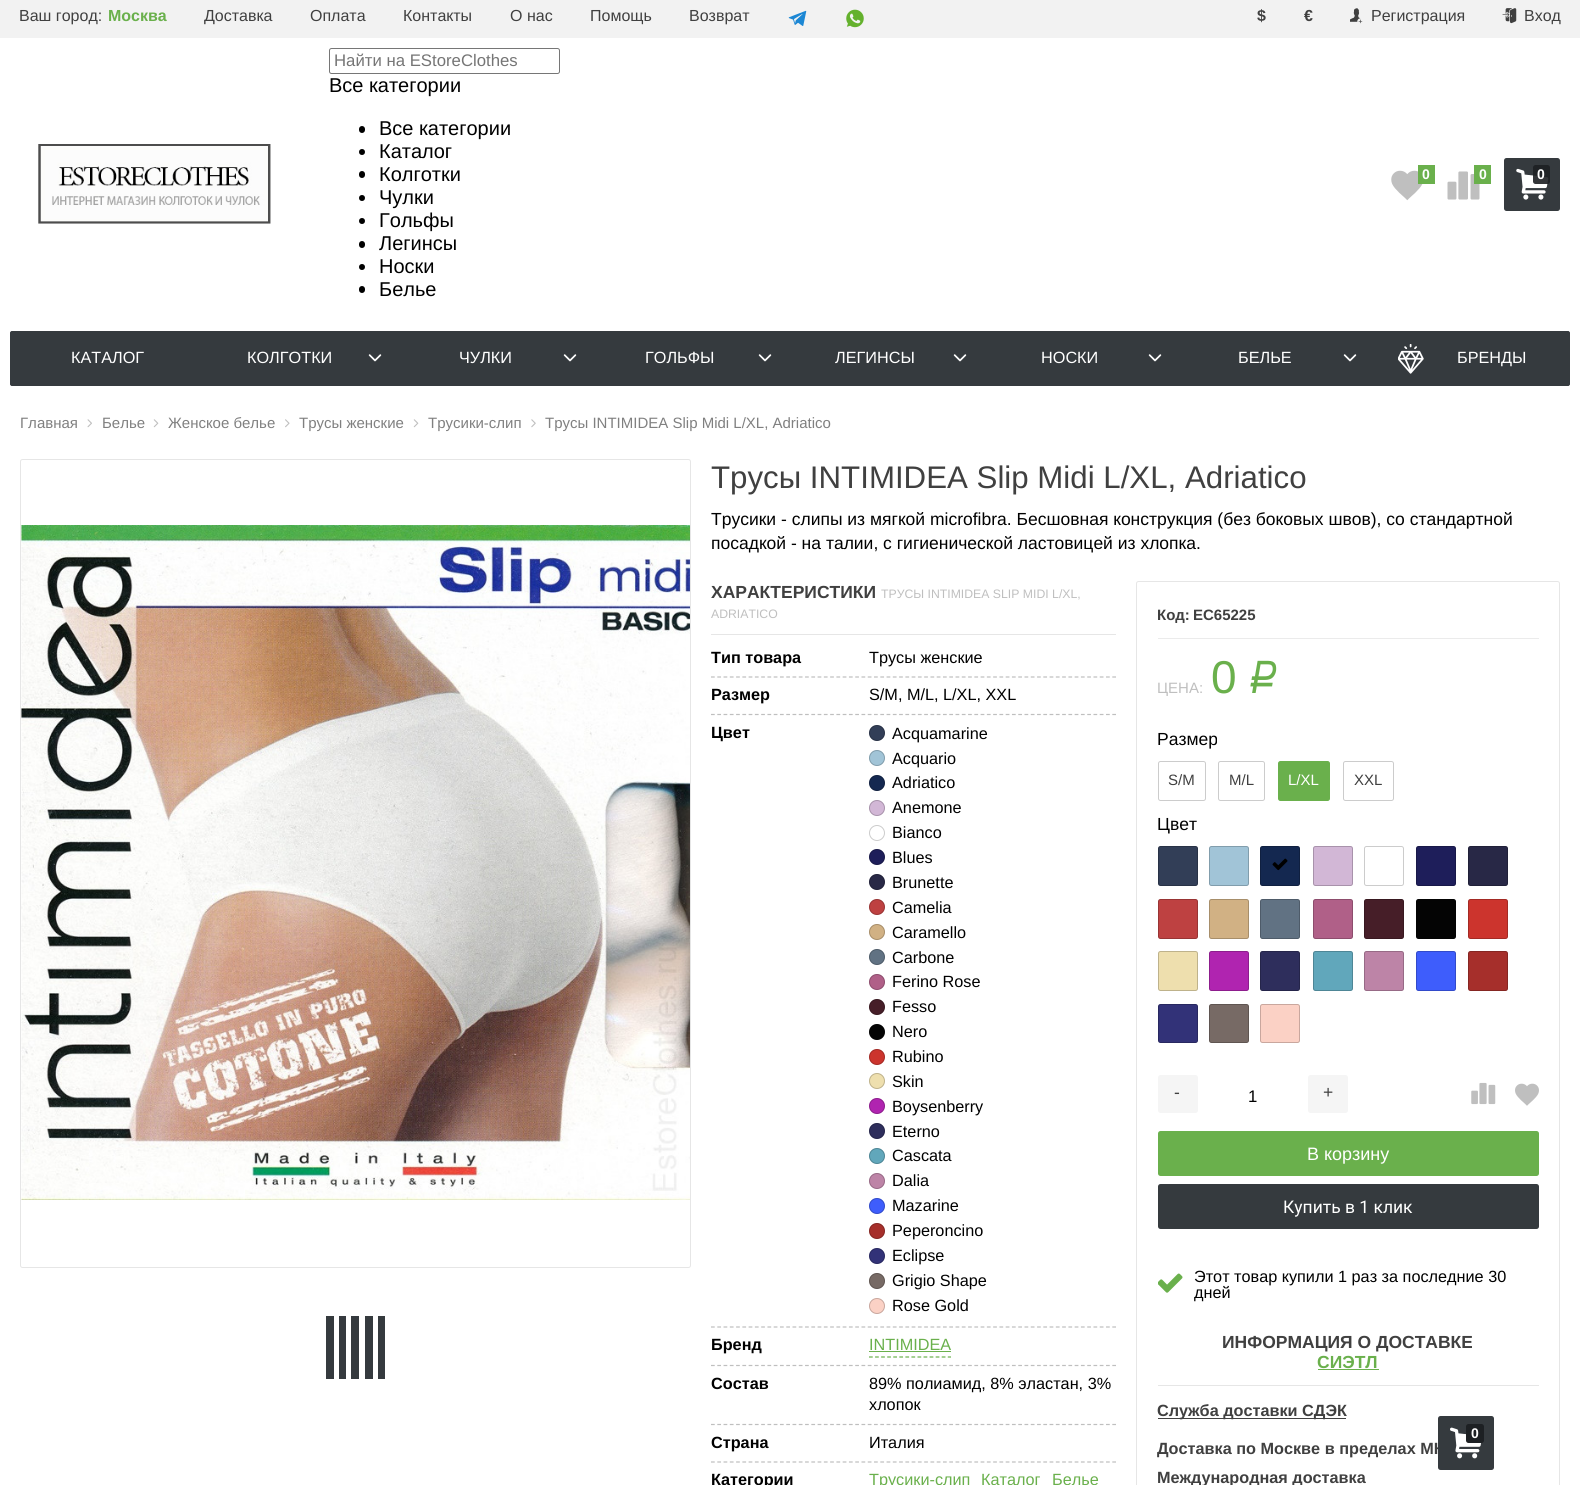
import math
import cairocffi as cairo

surface = cairo.ImageSurface(cairo.FORMAT_RGB24, 1580, 1485)
cr = cairo.Context(surface)
options = cairo.FontOptions()
options.set_hint_metrics(cairo.HINT_METRICS_OFF)
options.set_hint_style(cairo.HINT_STYLE_NONE)
cr.set_font_options(options)
cr.set_miter_limit(4)


def use_color(code):
    cr.set_source_rgb(*(v / 255 for v in bytes.fromhex(code[-6:])))


def round_rect(x, y, w, h, r):
    cr.new_sub_path()
    for i, (u, v) in enumerate([(x + w - r, y + h - r), (x + r, y + h - r), (x + r, y + r), (x + w - r, y + r)]):
        cr.arc(u, v, r, i * math.pi / 2, (i + 1) * math.pi / 2)
    cr.close_path()


def picture(path, x, y, w, h):
    cr.save()
    cr.set_source_surface(cairo.ImageSurface.create_from_png(path), x, y)
    cr.rectangle(x, y, w, h)
    cr.fill()
    cr.restore()


use_color("#ffffff")
cr.paint()
use_color("#f2f2f2")
cr.rectangle(0, 0, 1580, 38)
cr.fill()
cr.select_font_face("Liberation Sans")
cr.set_font_size(16)
use_color("#404040")
cr.move_to(19, 21)
cr.show_text("Ваш город:")
cr.select_font_face("Liberation Sans", cairo.FONT_SLANT_NORMAL, cairo.FONT_WEIGHT_BOLD)
use_color("#6ab04c")
cr.move_to(108, 21)
cr.show_text("Москва")
cr.select_font_face("Liberation Sans")
use_color("#404040")
cr.move_to(204, 21)
cr.show_text("Доставка")
cr.move_to(310, 21)
cr.show_text("Оплата")
cr.move_to(403, 21)
cr.show_text("Контакты")
cr.move_to(510, 21)
cr.show_text("О нас")
cr.move_to(590, 21)
cr.show_text("Помощь")
cr.move_to(689, 21)
cr.show_text("Возврат")
picture("img1.png", 788, 10, 19, 16)
picture("img2.png", 846, 9, 18, 19)
cr.select_font_face("Liberation Sans", cairo.FONT_SLANT_NORMAL, cairo.FONT_WEIGHT_BOLD)
cr.move_to(1257, 21)
cr.show_text("$")
cr.move_to(1304, 21)
cr.show_text("€")
picture("img3.png", 1350, 8, 13, 16)
cr.select_font_face("Liberation Sans")
cr.move_to(1371, 21)
cr.show_text("Регистрация")
picture("img4.png", 1502, 8, 15, 16)
cr.move_to(1524, 21)
cr.show_text("Вход")
picture("img5.png", 38, 144, 233, 80)
round_rect(329.5, 48.5, 230, 25, 2)
use_color("#767676")
cr.set_line_width(1)
cr.stroke()
cr.set_font_size(16.75)
use_color("#757575")
cr.move_to(334, 66)
cr.show_text("Найти на EStoreClothes")
cr.set_font_size(20)
use_color("#000000")
cr.move_to(329, 92)
cr.show_text("Все категории")
round_rect(359, 126, 6, 7, 3)
cr.fill()
cr.move_to(379, 135)
cr.show_text("Все категории")
cr.new_path()
cr.arc(362, 152, 3, 0, 2 * math.pi)
cr.fill()
cr.move_to(379, 158)
cr.show_text("Каталог")
round_rect(359, 171, 6, 7, 3)
cr.fill()
cr.move_to(379, 181)
cr.show_text("Колготки")
cr.new_path()
cr.arc(362, 198, 3, 0, 2 * math.pi)
cr.fill()
cr.move_to(379, 204)
cr.show_text("Чулки")
cr.new_path()
cr.arc(362, 221, 3, 0, 2 * math.pi)
cr.fill()
cr.move_to(379, 227)
cr.show_text("Гольфы")
round_rect(359, 241, 6, 7, 3)
cr.fill()
cr.move_to(379, 250)
cr.show_text("Легинсы")
cr.new_path()
cr.arc(362, 267, 3, 0, 2 * math.pi)
cr.fill()
cr.move_to(379, 273)
cr.show_text("Носки")
round_rect(359, 286, 6, 7, 3)
cr.fill()
cr.move_to(379, 296)
cr.show_text("Белье")
picture("img6.png", 1391, 170, 32, 31)
use_color("#6ab04c")
cr.rectangle(1418, 165, 17, 19)
cr.fill()
cr.select_font_face("Liberation Sans", cairo.FONT_SLANT_NORMAL, cairo.FONT_WEIGHT_BOLD)
cr.set_font_size(14)
use_color("#ffffff")
cr.move_to(1422, 179)
cr.show_text("0")
picture("img7.png", 1447, 171, 33, 29)
use_color("#6ab04c")
cr.rectangle(1474, 165, 17, 19)
cr.fill()
use_color("#ffffff")
cr.move_to(1479, 179)
cr.show_text("0")
use_color("#353a3e")
round_rect(1504, 158, 56, 53, 2.5)
cr.fill()
picture("img8.png", 1516, 168, 33, 32)
cr.set_source_rgba(0.114, 0.125, 0.137, 0.9)
round_rect(1533, 165, 17, 19, 2.5)
cr.fill()
use_color("#ffffff")
cr.move_to(1537, 179)
cr.show_text("0")
use_color("#353a3e")
round_rect(10, 331, 1560, 55, 2.5)
cr.fill()
cr.new_path()
cr.move_to(12.5, 331)
cr.line_to(205, 331)
cr.line_to(205, 386)
cr.line_to(12.5, 386)
cr.curve_to(11, 386, 10, 385, 10, 383.5)
cr.line_to(10, 333.5)
cr.curve_to(10, 332, 11, 331, 12.5, 331)
cr.close_path()
cr.fill()
cr.select_font_face("Liberation Sans")
cr.set_font_size(16.25)
use_color("#ffffff")
cr.move_to(71, 363)
cr.show_text("КАТАЛОГ")
cr.move_to(247, 363)
cr.show_text("КОЛГОТКИ")
picture("img9.png", 368, 354, 14, 8)
cr.move_to(459, 363)
cr.show_text("ЧУЛКИ")
picture("img9.png", 563, 354, 14, 8)
cr.move_to(645, 363)
cr.show_text("ГОЛЬФЫ")
picture("img9.png", 758, 354, 14, 8)
cr.move_to(835, 363)
cr.show_text("ЛЕГИНСЫ")
picture("img9.png", 953, 354, 14, 8)
cr.move_to(1041, 363)
cr.show_text("НОСКИ")
picture("img9.png", 1148, 354, 14, 8)
cr.move_to(1238, 363)
cr.show_text("БЕЛЬЕ")
picture("img9.png", 1343, 354, 14, 8)
use_color("#353a3e")
cr.new_path()
cr.move_to(1375, 331)
cr.line_to(1567.5, 331)
cr.curve_to(1569, 331, 1570, 332, 1570, 333.5)
cr.line_to(1570, 383.5)
cr.curve_to(1570, 385, 1569, 386, 1567.5, 386)
cr.line_to(1375, 386)
cr.close_path()
cr.fill()
picture("img10.png", 1398, 344, 26, 30)
use_color("#ffffff")
cr.move_to(1457, 363)
cr.show_text("БРЕНДЫ")
cr.set_font_size(15)
use_color("#808080")
cr.move_to(20, 428)
cr.show_text("Главная")
picture("img11.png", 87, 419, 5, 9)
cr.move_to(102, 428)
cr.show_text("Белье")
picture("img12.png", 153, 419, 6, 9)
cr.move_to(168, 428)
cr.show_text("Женское белье")
picture("img13.png", 285, 419, 5, 9)
cr.move_to(299, 428)
cr.show_text("Трусы женские")
picture("img12.png", 413, 419, 6, 9)
cr.move_to(428, 428)
cr.show_text("Трусики-слип")
picture("img14.png", 531, 419, 5, 9)
cr.move_to(545, 428)
cr.show_text("Трусы INTIMIDEA Slip Midi L/XL, Adriatico")
round_rect(20.5, 459.5, 670, 808, 2)
use_color("#e6e6e6")
cr.stroke()
picture("img15.png", 21, 525, 669, 675)
use_color("#353a3e")
cr.rectangle(326, 1316, 8, 63)
cr.fill()
cr.rectangle(339, 1316, 7, 63)
cr.fill()
cr.rectangle(351, 1316, 8, 63)
cr.fill()
cr.rectangle(365, 1316, 8, 63)
cr.fill()
cr.rectangle(378, 1316, 7, 63)
cr.fill()
cr.set_font_size(31.25)
use_color("#404040")
cr.move_to(711, 488)
cr.show_text("Трусы INTIMIDEA Slip Midi L/XL, Adriatico")
cr.set_font_size(17.5)
use_color("#000000")
cr.move_to(711, 525)
cr.show_text("Трусики - слипы из мягкой microfibra. Бесшовная конструкция (без боковых швов), со стандартной")
cr.move_to(711, 549)
cr.show_text("посадкой - на талии, с гигиенической ластовицей из хлопка.")
use_color("#e6e6e6")
cr.rectangle(711, 634, 405, 1)
cr.fill()
cr.select_font_face("Liberation Sans", cairo.FONT_SLANT_NORMAL, cairo.FONT_WEIGHT_BOLD)
use_color("#404040")
cr.move_to(711, 598)
cr.show_text("ХАРАКТЕРИСТИКИ")
cr.select_font_face("Liberation Sans")
cr.set_font_size(12.25)
use_color("#bfbfbf")
cr.move_to(881, 598)
cr.show_text("ТРУСЫ INTIMIDEA SLIP MIDI L/XL,")
cr.move_to(711, 618)
cr.show_text("ADRIATICO")
cr.new_path()
cr.move_to(711, 677)
cr.line_to(1116, 677)
cr.set_line_width(1.2)
cr.set_dash([3.75, 2.52])
cr.stroke()
cr.select_font_face("Liberation Sans", cairo.FONT_SLANT_NORMAL, cairo.FONT_WEIGHT_BOLD)
cr.set_font_size(16.25)
use_color("#000000")
cr.move_to(711, 663)
cr.show_text("Тип товара")
cr.select_font_face("Liberation Sans")
cr.move_to(869, 663)
cr.show_text("Трусы женские")
cr.new_path()
cr.move_to(711, 714.5)
cr.line_to(1116, 714.5)
use_color("#bfbfbf")
cr.stroke()
cr.select_font_face("Liberation Sans", cairo.FONT_SLANT_NORMAL, cairo.FONT_WEIGHT_BOLD)
use_color("#000000")
cr.move_to(711, 700)
cr.show_text("Размер")
cr.select_font_face("Liberation Sans")
cr.move_to(869, 700)
cr.show_text("S/M, M/L, L/XL, XXL")
cr.new_path()
cr.move_to(711, 1327)
cr.line_to(1116, 1327)
use_color("#bfbfbf")
cr.stroke()
cr.select_font_face("Liberation Sans", cairo.FONT_SLANT_NORMAL, cairo.FONT_WEIGHT_BOLD)
use_color("#000000")
cr.move_to(711, 738)
cr.show_text("Цвет")
use_color("#323e57")
cr.new_path()
cr.arc(877, 733, 8, 0, 2 * math.pi)
cr.fill()
cr.arc(877, 733, 7.5, 0, 2 * math.pi)
cr.set_source_rgba(0, 0, 0, 0.2)
cr.set_line_width(1)
cr.set_dash([])
cr.stroke()
cr.select_font_face("Liberation Sans")
use_color("#000000")
cr.move_to(892, 739)
cr.show_text("Acquamarine")
use_color("#a1c4d7")
cr.new_path()
cr.arc(877, 758, 8, 0, 2 * math.pi)
cr.fill()
cr.arc(877, 758, 7.5, 0, 2 * math.pi)
cr.set_source_rgba(0, 0, 0, 0.2)
cr.stroke()
use_color("#000000")
cr.move_to(892, 764)
cr.show_text("Acquario")
use_color("#142850")
cr.new_path()
cr.arc(877, 783, 8, 0, 2 * math.pi)
cr.fill()
cr.arc(877, 783, 7.5, 0, 2 * math.pi)
cr.set_source_rgba(0, 0, 0, 0.2)
cr.stroke()
use_color("#000000")
cr.move_to(892, 788)
cr.show_text("Adriatico")
use_color("#d2b7d6")
cr.new_path()
cr.arc(877, 808, 8, 0, 2 * math.pi)
cr.fill()
cr.arc(877, 808, 7.5, 0, 2 * math.pi)
cr.set_source_rgba(0, 0, 0, 0.2)
cr.stroke()
use_color("#000000")
cr.move_to(892, 813)
cr.show_text("Anemone")
cr.new_path()
cr.arc(877, 833, 7.5, 0, 2 * math.pi)
use_color("#cccccc")
cr.stroke()
use_color("#000000")
cr.move_to(892, 838)
cr.show_text("Bianco")
use_color("#1e1e5a")
cr.new_path()
cr.arc(877, 857, 8, 0, 2 * math.pi)
cr.fill()
cr.arc(877, 857, 7.5, 0, 2 * math.pi)
cr.set_source_rgba(0, 0, 0, 0.2)
cr.stroke()
use_color("#000000")
cr.move_to(892, 863)
cr.show_text("Blues")
use_color("#282846")
cr.new_path()
cr.arc(877, 882, 8, 0, 2 * math.pi)
cr.fill()
cr.arc(877, 882, 7.5, 0, 2 * math.pi)
cr.set_source_rgba(0, 0, 0, 0.2)
cr.stroke()
use_color("#000000")
cr.move_to(892, 888)
cr.show_text("Brunette")
use_color("#be4141")
cr.new_path()
cr.arc(877, 907, 8, 0, 2 * math.pi)
cr.fill()
cr.arc(877, 907, 7.5, 0, 2 * math.pi)
cr.set_source_rgba(0, 0, 0, 0.2)
cr.stroke()
use_color("#000000")
cr.move_to(892, 913)
cr.show_text("Camelia")
use_color("#d1b184")
cr.new_path()
cr.arc(877, 932, 8, 0, 2 * math.pi)
cr.fill()
cr.arc(877, 932, 7.5, 0, 2 * math.pi)
cr.set_source_rgba(0, 0, 0, 0.2)
cr.stroke()
use_color("#000000")
cr.move_to(892, 938)
cr.show_text("Caramello")
use_color("#617283")
cr.new_path()
cr.arc(877, 957, 8, 0, 2 * math.pi)
cr.fill()
cr.arc(877, 957, 7.5, 0, 2 * math.pi)
cr.set_source_rgba(0, 0, 0, 0.2)
cr.stroke()
use_color("#000000")
cr.move_to(892, 963)
cr.show_text("Carbone")
use_color("#b06088")
cr.new_path()
cr.arc(877, 982, 8, 0, 2 * math.pi)
cr.fill()
cr.arc(877, 982, 7.5, 0, 2 * math.pi)
cr.set_source_rgba(0, 0, 0, 0.2)
cr.stroke()
use_color("#000000")
cr.move_to(892, 987)
cr.show_text("Ferino Rose")
use_color("#461e28")
cr.new_path()
cr.arc(877, 1007, 8, 0, 2 * math.pi)
cr.fill()
cr.arc(877, 1007, 7.5, 0, 2 * math.pi)
cr.set_source_rgba(0, 0, 0, 0.2)
cr.stroke()
use_color("#000000")
cr.move_to(892, 1012)
cr.show_text("Fesso")
use_color("#040404")
cr.new_path()
cr.arc(877, 1032, 8, 0, 2 * math.pi)
cr.fill()
cr.arc(877, 1032, 7.5, 0, 2 * math.pi)
cr.set_source_rgba(0, 0, 0, 0.2)
cr.stroke()
use_color("#000000")
cr.move_to(892, 1037)
cr.show_text("Nero")
use_color("#cc342d")
cr.new_path()
cr.arc(877, 1057, 8, 0, 2 * math.pi)
cr.fill()
cr.arc(877, 1057, 7.5, 0, 2 * math.pi)
cr.set_source_rgba(0, 0, 0, 0.2)
cr.stroke()
use_color("#000000")
cr.move_to(892, 1062)
cr.show_text("Rubino")
use_color("#eedfae")
cr.new_path()
cr.arc(877, 1081, 8, 0, 2 * math.pi)
cr.fill()
cr.arc(877, 1081, 7.5, 0, 2 * math.pi)
cr.set_source_rgba(0, 0, 0, 0.2)
cr.stroke()
use_color("#000000")
cr.move_to(892, 1087)
cr.show_text("Skin")
use_color("#b024b0")
cr.new_path()
cr.arc(877, 1106, 8, 0, 2 * math.pi)
cr.fill()
cr.arc(877, 1106, 7.5, 0, 2 * math.pi)
cr.set_source_rgba(0, 0, 0, 0.2)
cr.stroke()
use_color("#000000")
cr.move_to(892, 1112)
cr.show_text("Boysenberry")
use_color("#2e2e5c")
cr.new_path()
cr.arc(877, 1131, 8, 0, 2 * math.pi)
cr.fill()
cr.arc(877, 1131, 7.5, 0, 2 * math.pi)
cr.set_source_rgba(0, 0, 0, 0.2)
cr.stroke()
use_color("#000000")
cr.move_to(892, 1137)
cr.show_text("Eterno")
use_color("#61a7bb")
cr.new_path()
cr.arc(877, 1156, 8, 0, 2 * math.pi)
cr.fill()
cr.arc(877, 1156, 7.5, 0, 2 * math.pi)
cr.set_source_rgba(0, 0, 0, 0.2)
cr.stroke()
use_color("#000000")
cr.move_to(892, 1161)
cr.show_text("Cascata")
use_color("#bd84a7")
cr.new_path()
cr.arc(877, 1181, 8, 0, 2 * math.pi)
cr.fill()
cr.arc(877, 1181, 7.5, 0, 2 * math.pi)
cr.set_source_rgba(0, 0, 0, 0.2)
cr.stroke()
use_color("#000000")
cr.move_to(892, 1186)
cr.show_text("Dalia")
use_color("#3e5dfc")
cr.new_path()
cr.arc(877, 1206, 8, 0, 2 * math.pi)
cr.fill()
cr.arc(877, 1206, 7.5, 0, 2 * math.pi)
cr.set_source_rgba(0, 0, 0, 0.2)
cr.stroke()
use_color("#000000")
cr.move_to(892, 1211)
cr.show_text("Mazarine")
use_color("#a62f2b")
cr.new_path()
cr.arc(877, 1231, 8, 0, 2 * math.pi)
cr.fill()
cr.arc(877, 1231, 7.5, 0, 2 * math.pi)
cr.set_source_rgba(0, 0, 0, 0.2)
cr.stroke()
use_color("#000000")
cr.move_to(892, 1236)
cr.show_text("Peperoncino")
use_color("#323278")
cr.new_path()
cr.arc(877, 1256, 8, 0, 2 * math.pi)
cr.fill()
cr.arc(877, 1256, 7.5, 0, 2 * math.pi)
cr.set_source_rgba(0, 0, 0, 0.2)
cr.stroke()
use_color("#000000")
cr.move_to(892, 1261)
cr.show_text("Eclipse")
use_color("#776a65")
cr.new_path()
cr.arc(877, 1281, 8, 0, 2 * math.pi)
cr.fill()
cr.arc(877, 1281, 7.5, 0, 2 * math.pi)
cr.set_source_rgba(0, 0, 0, 0.2)
cr.stroke()
use_color("#000000")
cr.move_to(892, 1286)
cr.show_text("Grigio Shape")
use_color("#fbd1c5")
cr.new_path()
cr.arc(877, 1306, 8, 0, 2 * math.pi)
cr.fill()
cr.arc(877, 1306, 7.5, 0, 2 * math.pi)
cr.set_source_rgba(0, 0, 0, 0.2)
cr.stroke()
use_color("#000000")
cr.move_to(892, 1311)
cr.show_text("Rose Gold")
cr.new_path()
cr.move_to(711, 1365.5)
cr.line_to(1116, 1365.5)
use_color("#bfbfbf")
cr.set_line_width(1.2)
cr.set_dash([3.75, 2.52])
cr.stroke()
cr.select_font_face("Liberation Sans", cairo.FONT_SLANT_NORMAL, cairo.FONT_WEIGHT_BOLD)
use_color("#000000")
cr.move_to(711, 1350)
cr.show_text("Бренд")
cr.new_path()
cr.move_to(869, 1357)
cr.line_to(951, 1357)
use_color("#6ab04c")
cr.set_dash([3.75, 2.31])
cr.stroke()
cr.select_font_face("Liberation Sans")
cr.move_to(869, 1350)
cr.show_text("INTIMIDEA")
cr.rectangle(869, 1351, 82, 1)
cr.fill()
cr.new_path()
cr.move_to(711, 1424.5)
cr.line_to(1116, 1424.5)
use_color("#bfbfbf")
cr.set_dash([3.75, 2.52])
cr.stroke()
cr.select_font_face("Liberation Sans", cairo.FONT_SLANT_NORMAL, cairo.FONT_WEIGHT_BOLD)
use_color("#000000")
cr.move_to(711, 1389)
cr.show_text("Состав")
cr.select_font_face("Liberation Sans")
cr.move_to(869, 1389)
cr.show_text("89% полиамид, 8% эластан, 3%")
cr.move_to(869, 1410)
cr.show_text("хлопок")
cr.new_path()
cr.move_to(711, 1462)
cr.line_to(1116, 1462)
use_color("#bfbfbf")
cr.stroke()
cr.select_font_face("Liberation Sans", cairo.FONT_SLANT_NORMAL, cairo.FONT_WEIGHT_BOLD)
use_color("#000000")
cr.move_to(711, 1448)
cr.show_text("Страна")
cr.select_font_face("Liberation Sans")
cr.move_to(869, 1448)
cr.show_text("Италия")
cr.select_font_face("Liberation Sans", cairo.FONT_SLANT_NORMAL, cairo.FONT_WEIGHT_BOLD)
cr.move_to(711, 1485)
cr.show_text("Категории")
cr.select_font_face("Liberation Sans")
use_color("#6ab04c")
cr.move_to(869, 1485)
cr.show_text("Трусики-слип")
cr.move_to(981, 1485)
cr.show_text("Каталог")
cr.move_to(1052, 1485)
cr.show_text("Белье")
round_rect(1136.5, 581.5, 423, 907, 2)
use_color("#e6e6e6")
cr.set_line_width(1)
cr.set_dash([])
cr.stroke()
use_color("#ebebeb")
cr.rectangle(1158, 638, 381, 1)
cr.fill()
cr.select_font_face("Liberation Sans", cairo.FONT_SLANT_NORMAL, cairo.FONT_WEIGHT_BOLD)
cr.set_font_size(15)
use_color("#404040")
cr.move_to(1157, 620)
cr.show_text("Код:")
cr.move_to(1193, 620)
cr.show_text("EC65225")
cr.select_font_face("Liberation Sans")
use_color("#bfbfbf")
cr.move_to(1157, 693)
cr.show_text("ЦЕНА:")
cr.set_font_size(46)
use_color("#6ab04c")
cr.move_to(1211, 693)
cr.show_text("0")
cr.select_font_face("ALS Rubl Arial", cairo.FONT_SLANT_ITALIC)
cr.move_to(1249, 693)
cr.show_text("Р")
cr.select_font_face("Liberation Sans")
cr.set_font_size(17.5)
use_color("#000000")
cr.move_to(1157, 745)
cr.show_text("Размер")
round_rect(1158.5, 761.5, 47, 39, 2)
use_color("#cccccc")
cr.stroke()
cr.set_font_size(15)
use_color("#404040")
cr.move_to(1168, 785)
cr.show_text("S/M")
round_rect(1218.5, 761.5, 46, 39, 2)
use_color("#cccccc")
cr.stroke()
use_color("#404040")
cr.move_to(1229, 785)
cr.show_text("M/L")
use_color("#6ab04c")
round_rect(1278.5, 761.5, 51, 39, 2)
cr.fill_preserve()
cr.stroke()
use_color("#ffffff")
cr.move_to(1288, 785)
cr.show_text("L/XL")
round_rect(1343.5, 761.5, 50, 39, 2)
use_color("#cccccc")
cr.stroke()
use_color("#404040")
cr.move_to(1354, 785)
cr.show_text("XXL")
cr.set_font_size(17.5)
use_color("#000000")
cr.move_to(1157, 830)
cr.show_text("Цвет")
use_color("#323e57")
round_rect(1158, 846, 40, 40, 2.5)
cr.fill()
round_rect(1158.5, 846.5, 39, 39, 2)
cr.set_source_rgba(0, 0, 0, 0.2)
cr.stroke()
use_color("#a1c4d7")
round_rect(1209, 846, 40, 40, 2.5)
cr.fill()
round_rect(1209.5, 846.5, 39, 39, 2)
cr.set_source_rgba(0, 0, 0, 0.2)
cr.stroke()
use_color("#142850")
round_rect(1260, 846, 40, 40, 2.5)
cr.fill()
round_rect(1260.5, 846.5, 39, 39, 2)
cr.set_source_rgba(0, 0, 0, 0.2)
cr.stroke()
picture("img16.png", 1272, 858, 16, 13)
use_color("#d2b7d6")
round_rect(1313, 846, 40, 40, 2.5)
cr.fill()
round_rect(1313.5, 846.5, 39, 39, 2)
cr.set_source_rgba(0, 0, 0, 0.2)
cr.stroke()
round_rect(1364.5, 846.5, 39, 39, 2)
use_color("#cccccc")
cr.stroke()
use_color("#1e1e5a")
round_rect(1416, 846, 40, 40, 2.5)
cr.fill()
round_rect(1416.5, 846.5, 39, 39, 2)
cr.set_source_rgba(0, 0, 0, 0.2)
cr.stroke()
use_color("#282846")
round_rect(1468, 846, 40, 40, 2.5)
cr.fill()
round_rect(1468.5, 846.5, 39, 39, 2)
cr.set_source_rgba(0, 0, 0, 0.2)
cr.stroke()
use_color("#be4141")
round_rect(1158, 899, 40, 40, 2.5)
cr.fill()
round_rect(1158.5, 899.5, 39, 39, 2)
cr.set_source_rgba(0, 0, 0, 0.2)
cr.stroke()
use_color("#d1b184")
round_rect(1209, 899, 40, 40, 2.5)
cr.fill()
round_rect(1209.5, 899.5, 39, 39, 2)
cr.set_source_rgba(0, 0, 0, 0.2)
cr.stroke()
use_color("#617283")
round_rect(1260, 899, 40, 40, 2.5)
cr.fill()
round_rect(1260.5, 899.5, 39, 39, 2)
cr.set_source_rgba(0, 0, 0, 0.2)
cr.stroke()
use_color("#b06088")
round_rect(1313, 899, 40, 40, 2.5)
cr.fill()
round_rect(1313.5, 899.5, 39, 39, 2)
cr.set_source_rgba(0, 0, 0, 0.2)
cr.stroke()
use_color("#461e28")
round_rect(1364, 899, 40, 40, 2.5)
cr.fill()
round_rect(1364.5, 899.5, 39, 39, 2)
cr.set_source_rgba(0, 0, 0, 0.2)
cr.stroke()
use_color("#040404")
round_rect(1416, 899, 40, 40, 2.5)
cr.fill()
round_rect(1416.5, 899.5, 39, 39, 2)
cr.set_source_rgba(0, 0, 0, 0.2)
cr.stroke()
use_color("#cc342d")
round_rect(1468, 899, 40, 40, 2.5)
cr.fill()
round_rect(1468.5, 899.5, 39, 39, 2)
cr.set_source_rgba(0, 0, 0, 0.2)
cr.stroke()
use_color("#eedfae")
round_rect(1158, 951, 40, 40, 2.5)
cr.fill()
round_rect(1158.5, 951.5, 39, 39, 2)
cr.set_source_rgba(0, 0, 0, 0.2)
cr.stroke()
use_color("#b024b0")
round_rect(1209, 951, 40, 40, 2.5)
cr.fill()
round_rect(1209.5, 951.5, 39, 39, 2)
cr.set_source_rgba(0, 0, 0, 0.2)
cr.stroke()
use_color("#2e2e5c")
round_rect(1260, 951, 40, 40, 2.5)
cr.fill()
round_rect(1260.5, 951.5, 39, 39, 2)
cr.set_source_rgba(0, 0, 0, 0.2)
cr.stroke()
use_color("#61a7bb")
round_rect(1313, 951, 40, 40, 2.5)
cr.fill()
round_rect(1313.5, 951.5, 39, 39, 2)
cr.set_source_rgba(0, 0, 0, 0.2)
cr.stroke()
use_color("#bd84a7")
round_rect(1364, 951, 40, 40, 2.5)
cr.fill()
round_rect(1364.5, 951.5, 39, 39, 2)
cr.set_source_rgba(0, 0, 0, 0.2)
cr.stroke()
use_color("#3e5dfc")
round_rect(1416, 951, 40, 40, 2.5)
cr.fill()
round_rect(1416.5, 951.5, 39, 39, 2)
cr.set_source_rgba(0, 0, 0, 0.2)
cr.stroke()
use_color("#a62f2b")
round_rect(1468, 951, 40, 40, 2.5)
cr.fill()
round_rect(1468.5, 951.5, 39, 39, 2)
cr.set_source_rgba(0, 0, 0, 0.2)
cr.stroke()
use_color("#323278")
round_rect(1158, 1004, 40, 39, 2.5)
cr.fill()
round_rect(1158.5, 1004.5, 39, 38, 2)
cr.set_source_rgba(0, 0, 0, 0.2)
cr.stroke()
use_color("#776a65")
round_rect(1209, 1004, 40, 39, 2.5)
cr.fill()
round_rect(1209.5, 1004.5, 39, 38, 2)
cr.set_source_rgba(0, 0, 0, 0.2)
cr.stroke()
use_color("#fbd1c5")
round_rect(1260, 1004, 40, 39, 2.5)
cr.fill()
round_rect(1260.5, 1004.5, 39, 38, 2)
cr.set_source_rgba(0, 0, 0, 0.2)
cr.stroke()
use_color("#f5f5f5")
round_rect(1158, 1075, 40, 38, 2.5)
cr.fill()
use_color("#404040")
cr.move_to(1174, 1098)
cr.show_text("-")
cr.set_font_size(16.75)
use_color("#000000")
cr.move_to(1248, 1102)
cr.show_text("1")
use_color("#f5f5f5")
round_rect(1308, 1075, 40, 38, 2.5)
cr.fill()
cr.set_font_size(17.5)
use_color("#404040")
cr.move_to(1323, 1098)
cr.show_text("+")
picture("img17.png", 1471, 1082, 25, 23)
picture("img18.png", 1515, 1083, 24, 23)
use_color("#6ab04c")
round_rect(1158, 1131, 381, 45, 2.5)
cr.fill()
cr.set_font_size(18)
use_color("#ffffff")
cr.move_to(1307, 1160)
cr.show_text("В корзину")
use_color("#353a3e")
round_rect(1158, 1184, 381, 45, 2.5)
cr.fill()
cr.select_font_face("Roboto")
cr.set_font_size(17.5)
use_color("#ffffff")
cr.move_to(1283, 1213)
cr.show_text("Купить в 1 клик")
picture("img19.png", 1158, 1273, 25, 20)
cr.select_font_face("Liberation Sans")
cr.set_font_size(16.25)
use_color("#000000")
cr.move_to(1194, 1282)
cr.show_text("Этот товар купили 1 раз за последние 30")
cr.move_to(1194, 1298)
cr.show_text("дней")
use_color("#e6e6e6")
cr.rectangle(1158, 1385, 381, 1)
cr.fill()
cr.select_font_face("Liberation Sans", cairo.FONT_SLANT_NORMAL, cairo.FONT_WEIGHT_BOLD)
cr.set_font_size(17.5)
use_color("#404040")
cr.move_to(1222, 1348)
cr.show_text("ИНФОРМАЦИЯ О ДОСТАВКЕ")
use_color("#6ab04c")
cr.move_to(1317, 1368)
cr.show_text("СИЭТЛ")
cr.rectangle(1318, 1369, 61, 1)
cr.fill()
use_color("#404040")
cr.rectangle(1158, 1418, 188, 1)
cr.fill()
cr.set_font_size(16.25)
cr.move_to(1157, 1416)
cr.show_text("Служба доставки СДЭК")
cr.move_to(1157, 1454)
cr.show_text("Доставка по Москве в пределах МК")
cr.move_to(1157, 1483)
cr.show_text("Международная доставка")
use_color("#353a3e")
round_rect(1438, 1416, 56, 54, 2.5)
cr.fill()
picture("img20.png", 1450, 1427, 32, 32)
use_color("#1d2023")
round_rect(1466, 1424, 18, 19, 2.5)
cr.fill()
cr.set_font_size(14)
use_color("#ffffff")
cr.move_to(1471, 1438)
cr.show_text("0")
surface.write_to_png("result.png")
